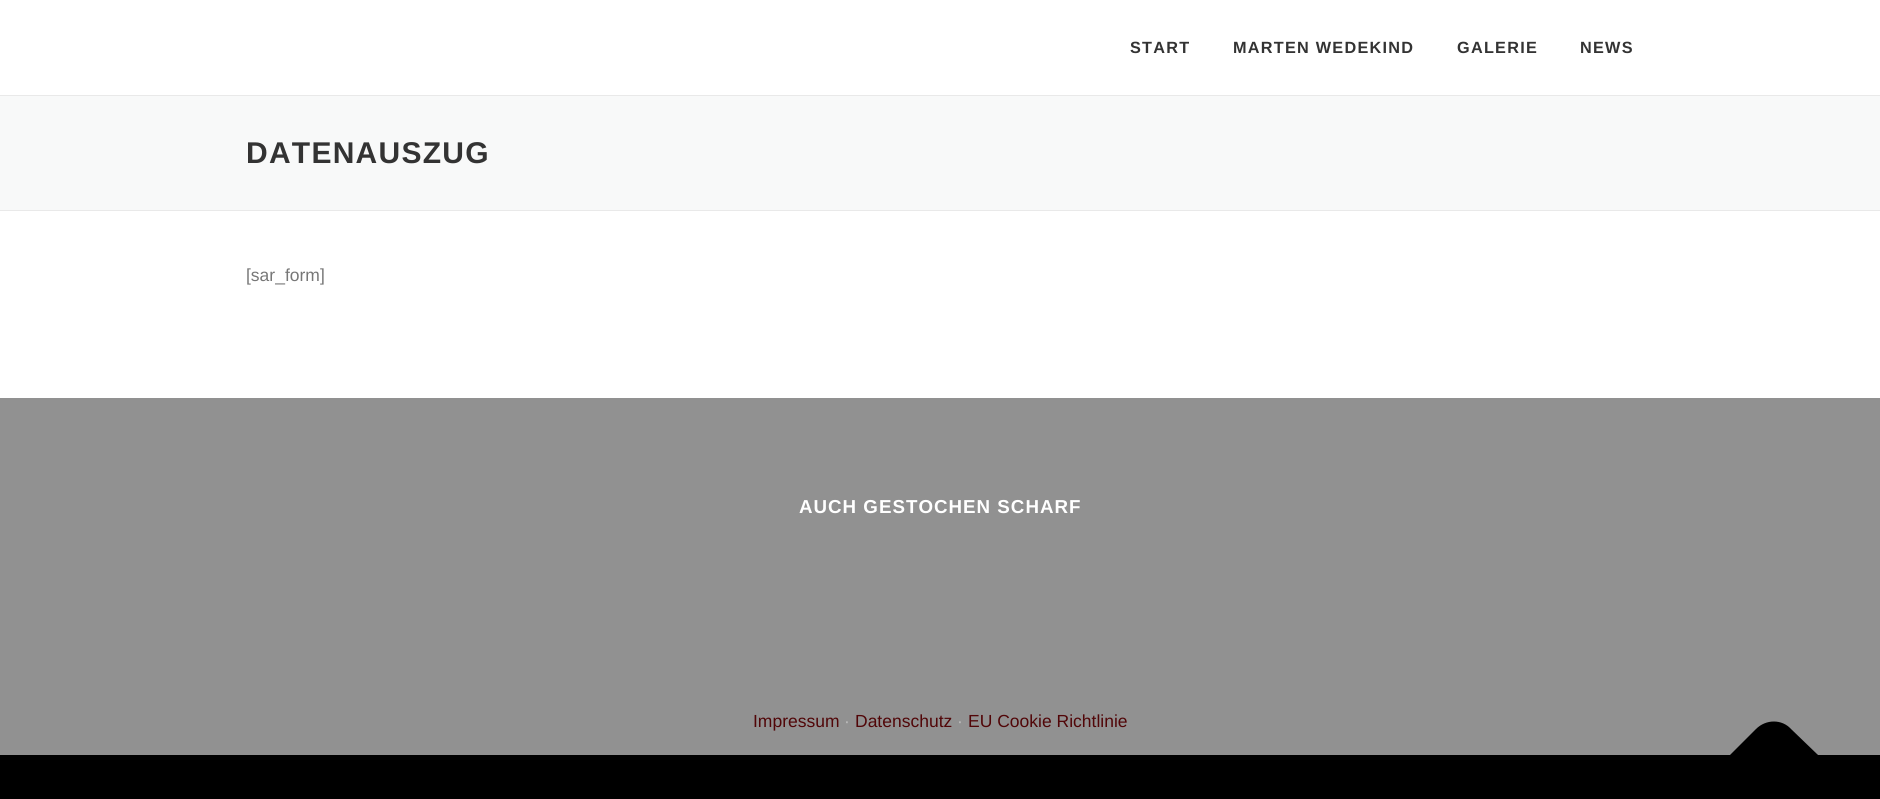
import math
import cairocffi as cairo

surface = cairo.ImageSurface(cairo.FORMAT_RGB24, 1880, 799)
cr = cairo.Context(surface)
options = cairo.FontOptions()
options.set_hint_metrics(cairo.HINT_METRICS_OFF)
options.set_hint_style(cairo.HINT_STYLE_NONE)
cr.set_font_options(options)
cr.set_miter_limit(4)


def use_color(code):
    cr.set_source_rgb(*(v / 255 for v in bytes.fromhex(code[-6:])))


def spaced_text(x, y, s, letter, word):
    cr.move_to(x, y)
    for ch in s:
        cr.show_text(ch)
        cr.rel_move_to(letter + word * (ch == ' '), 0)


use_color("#ffffff")
cr.paint()
cr.select_font_face("Liberation Sans", cairo.FONT_SLANT_NORMAL, cairo.FONT_WEIGHT_BOLD)
cr.set_font_size(16.25)
use_color("#333333")
spaced_text(1130, 53, "START", 1.25, 0)
spaced_text(1233, 53, "MARTEN WEDEKIND", 1.25, 0)
spaced_text(1457, 53, "GALERIE", 1.25, 0)
spaced_text(1580, 53, "NEWS", 1.25, 0)
use_color("#f8f9f9")
cr.rectangle(0, 96, 1880, 114)
cr.fill()
use_color("#e9e9e9")
cr.rectangle(0, 95, 1880, 1)
cr.fill()
cr.rectangle(0, 210, 1880, 1)
cr.fill()
cr.set_font_size(30)
use_color("#333333")
spaced_text(246, 163, "DATENAUSZUG", 1.25, 0)
cr.select_font_face("Liberation Sans")
cr.set_font_size(17.5)
use_color("#777777")
cr.move_to(246, 281)
cr.show_text("[sar_form]")
use_color("#919191")
cr.rectangle(0, 398, 1880, 357)
cr.fill()
cr.select_font_face("Liberation Sans", cairo.FONT_SLANT_NORMAL, cairo.FONT_WEIGHT_BOLD)
cr.set_font_size(18.75)
use_color("#ffffff")
spaced_text(799, 513, "AUCH GESTOCHEN SCHARF", 1, 0)
cr.select_font_face("Liberation Sans")
cr.set_font_size(17.5)
use_color("#510608")
cr.move_to(753, 727)
cr.show_text("Impressum")
use_color("#bbbbbb")
cr.move_to(844, 727)
cr.show_text("·")
use_color("#510608")
cr.move_to(855, 727)
cr.show_text("Datenschutz")
use_color("#bbbbbb")
cr.move_to(957, 727)
cr.show_text("·")
use_color("#510608")
cr.move_to(968, 727)
cr.show_text("EU Cookie Richtlinie")
use_color("#000000")
cr.rectangle(0, 755, 1880, 44)
cr.fill()
cr.new_path()
cr.move_to(1730, 755)
cr.line_to(1756, 729)
cr.curve_to(1766, 719, 1782, 719, 1791, 729)
cr.line_to(1818, 755)
cr.line_to(1774, 799)
cr.close_path()
cr.fill()
surface.write_to_png("result.png")
